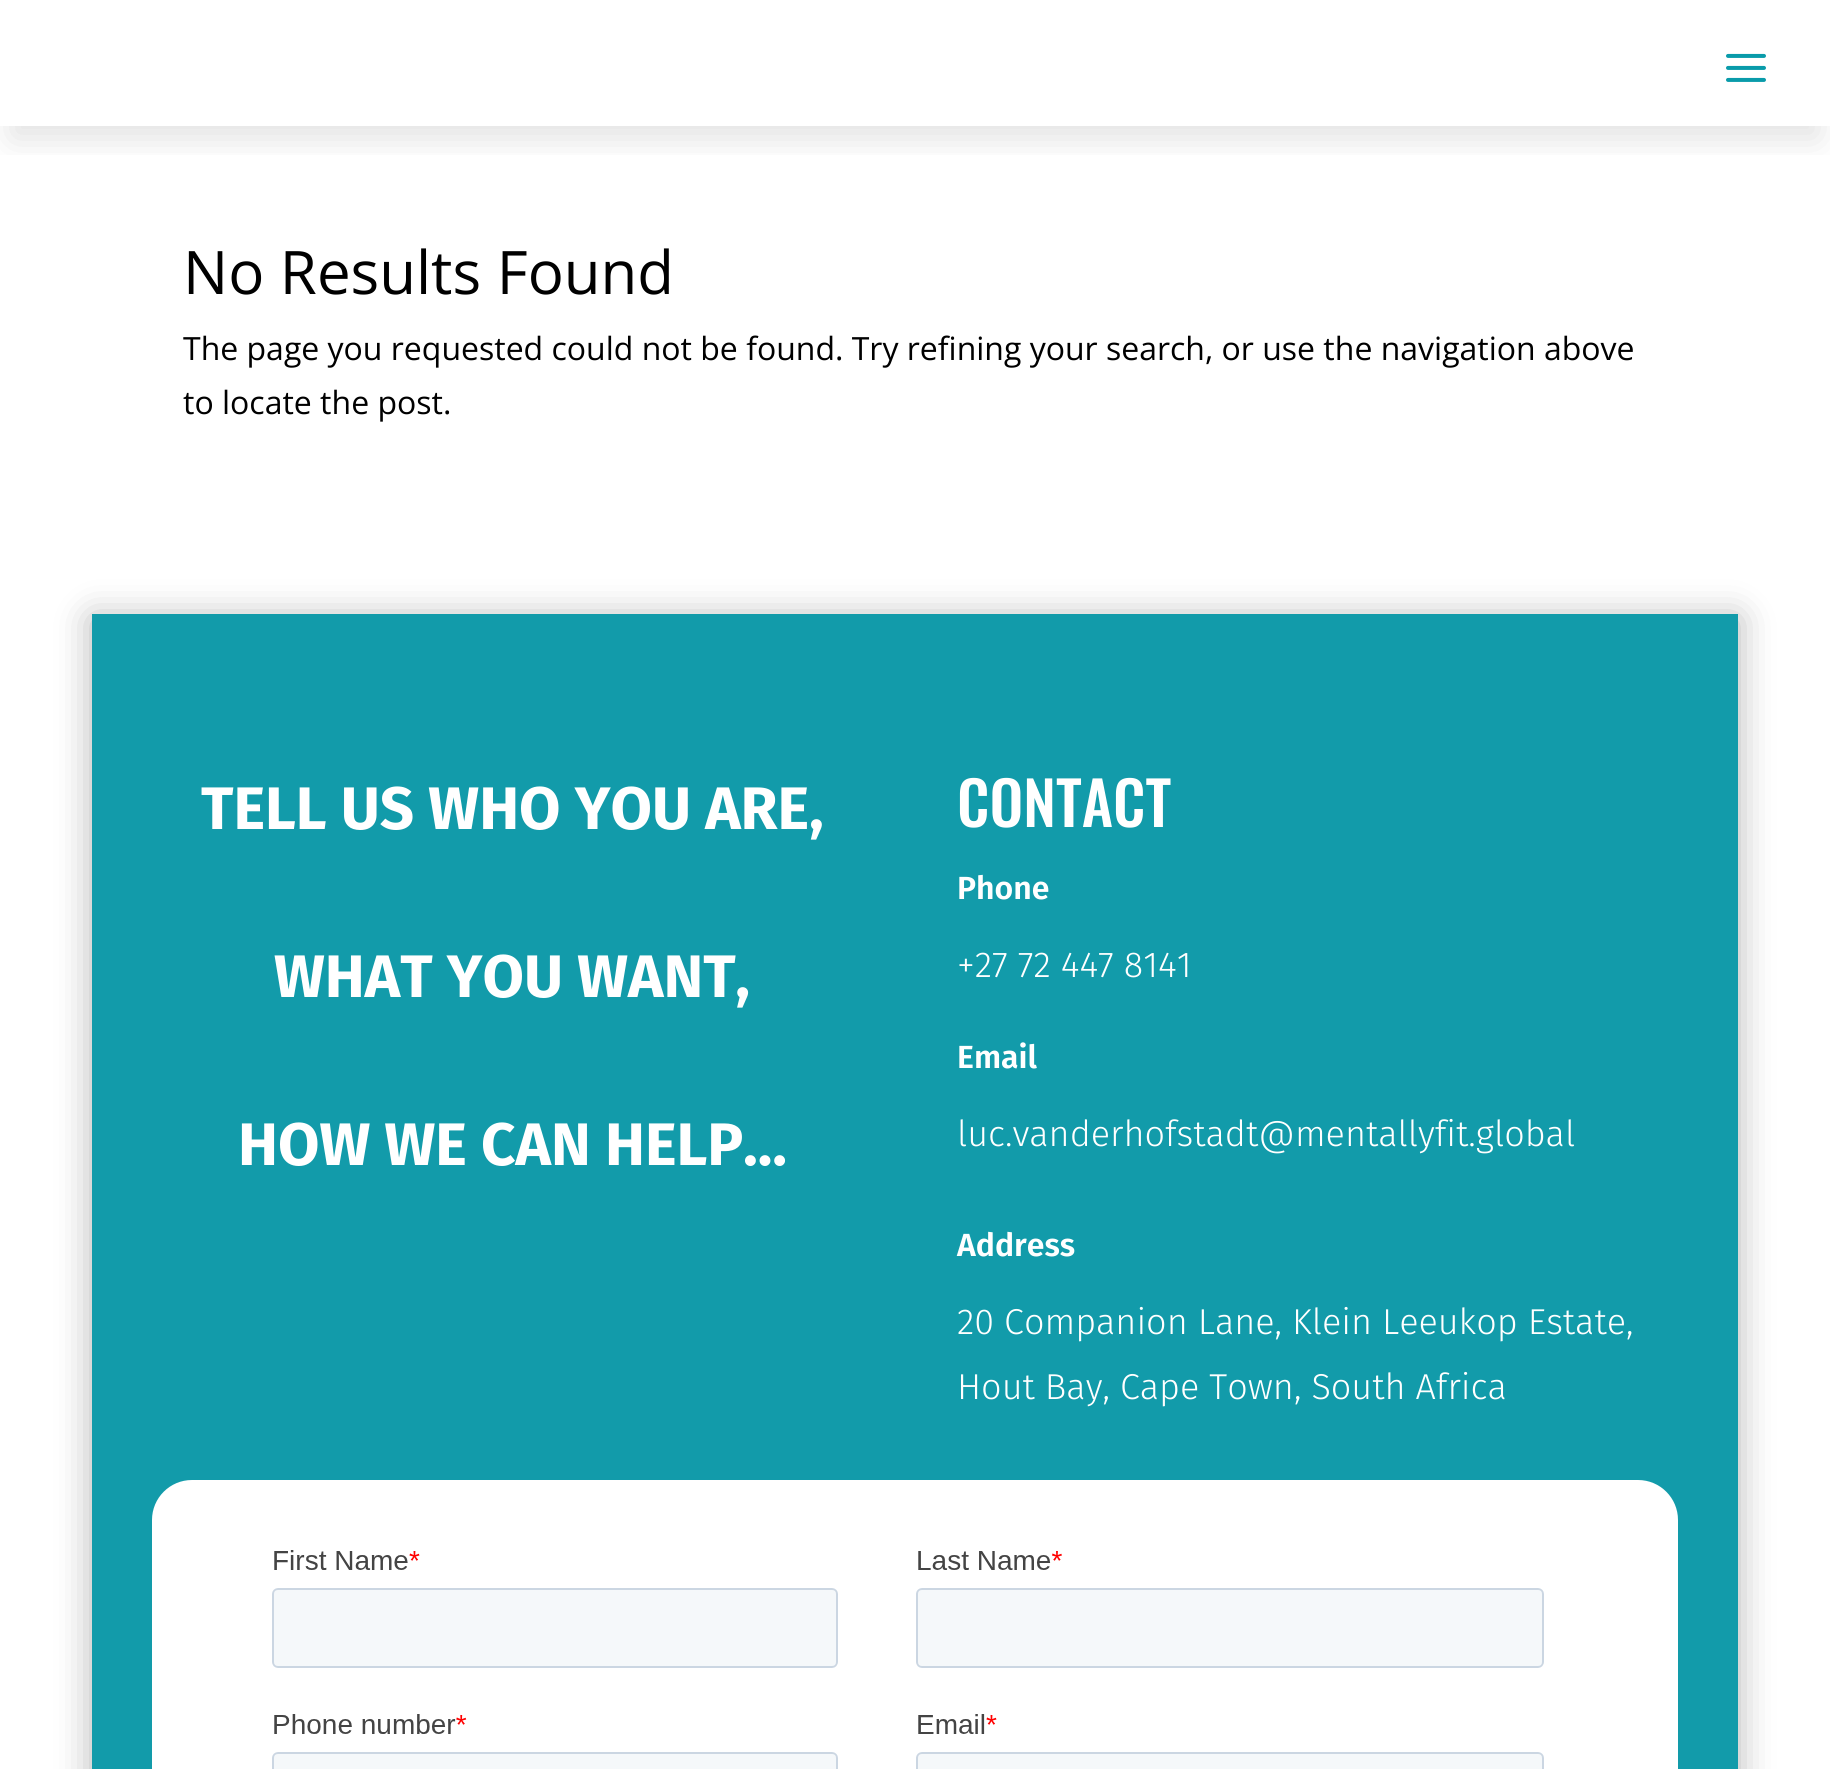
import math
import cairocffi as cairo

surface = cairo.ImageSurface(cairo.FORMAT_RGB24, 1830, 1769)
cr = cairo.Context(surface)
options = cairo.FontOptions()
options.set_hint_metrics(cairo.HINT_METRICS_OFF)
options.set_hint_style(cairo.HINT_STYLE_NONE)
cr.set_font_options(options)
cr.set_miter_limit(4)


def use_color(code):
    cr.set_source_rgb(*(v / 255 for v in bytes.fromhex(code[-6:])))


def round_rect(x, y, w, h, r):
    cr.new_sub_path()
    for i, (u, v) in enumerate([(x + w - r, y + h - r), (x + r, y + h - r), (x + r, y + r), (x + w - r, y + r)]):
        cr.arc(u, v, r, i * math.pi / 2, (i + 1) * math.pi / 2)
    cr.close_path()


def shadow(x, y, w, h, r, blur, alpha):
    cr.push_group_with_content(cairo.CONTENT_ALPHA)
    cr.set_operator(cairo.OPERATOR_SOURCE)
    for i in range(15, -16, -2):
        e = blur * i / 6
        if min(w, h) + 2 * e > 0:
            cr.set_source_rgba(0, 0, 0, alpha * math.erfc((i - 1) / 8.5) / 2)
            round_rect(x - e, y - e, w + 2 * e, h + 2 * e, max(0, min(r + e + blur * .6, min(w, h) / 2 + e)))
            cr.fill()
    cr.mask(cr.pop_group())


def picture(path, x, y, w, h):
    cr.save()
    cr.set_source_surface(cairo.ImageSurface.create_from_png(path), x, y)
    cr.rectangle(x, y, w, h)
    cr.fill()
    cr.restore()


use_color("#ffffff")
cr.paint()
cr.save()
cr.rectangle(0, 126, 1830, 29)
cr.clip()
use_color("#000000")
shadow(12, 36, 1806, 102, 0, 18, 0.12)
cr.restore()
picture("img1.png", 1726, 53, 40, 29)
cr.select_font_face("Open Sans")
cr.set_font_size(60)
use_color("#000000")
cr.move_to(183, 294)
cr.show_text("No Results Found")
cr.set_font_size(32)
cr.move_to(183, 360)
cr.show_text("The page you requested could not be found. Try refining your search, or use the navigation above")
cr.move_to(183, 414)
cr.show_text("to locate the post.")
use_color("#000000")
shadow(92, 618, 1646, 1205, 0, 18, 0.3)
use_color("#129baa")
cr.rectangle(92, 614, 1646, 1155)
cr.fill()
cr.select_font_face("Fira Sans", cairo.FONT_SLANT_NORMAL, cairo.FONT_WEIGHT_BOLD)
cr.set_font_size(60)
use_color("#ffffff")
cr.move_to(201, 829)
cr.show_text("TELL US WHO YOU ARE,")
cr.move_to(274, 997)
cr.show_text("WHAT YOU WANT,")
cr.move_to(238, 1165)
cr.show_text("HOW WE CAN HELP…")
cr.select_font_face("Oswald Medium")
cr.move_to(957, 827)
cr.show_text("CONTACT")
cr.select_font_face("Fira Sans SemiBold")
cr.set_font_size(32)
cr.move_to(957, 899)
cr.show_text("Phone")
cr.select_font_face("Fira Sans Light")
cr.set_font_size(36)
cr.move_to(957, 977)
cr.show_text("+27 72 447 8141")
cr.select_font_face("Fira Sans SemiBold")
cr.set_font_size(32)
cr.move_to(957, 1068)
cr.show_text("Email")
cr.select_font_face("Fira Sans Light")
cr.set_font_size(36)
cr.move_to(957, 1146)
cr.show_text("luc.vanderhofstadt@mentallyfit.global")
cr.select_font_face("Fira Sans SemiBold")
cr.set_font_size(32)
cr.move_to(957, 1256)
cr.show_text("Address")
cr.select_font_face("Fira Sans Light")
cr.set_font_size(36)
cr.move_to(957, 1334)
cr.show_text("20 Companion Lane, Klein Leeukop Estate,")
cr.move_to(957, 1399)
cr.show_text("Hout Bay, Cape Town, South Africa")
round_rect(152, 1480, 1526, 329, 40)
cr.fill()
picture("img2.png", 272, 1550, 1272, 219)
surface.write_to_png("result.png")
